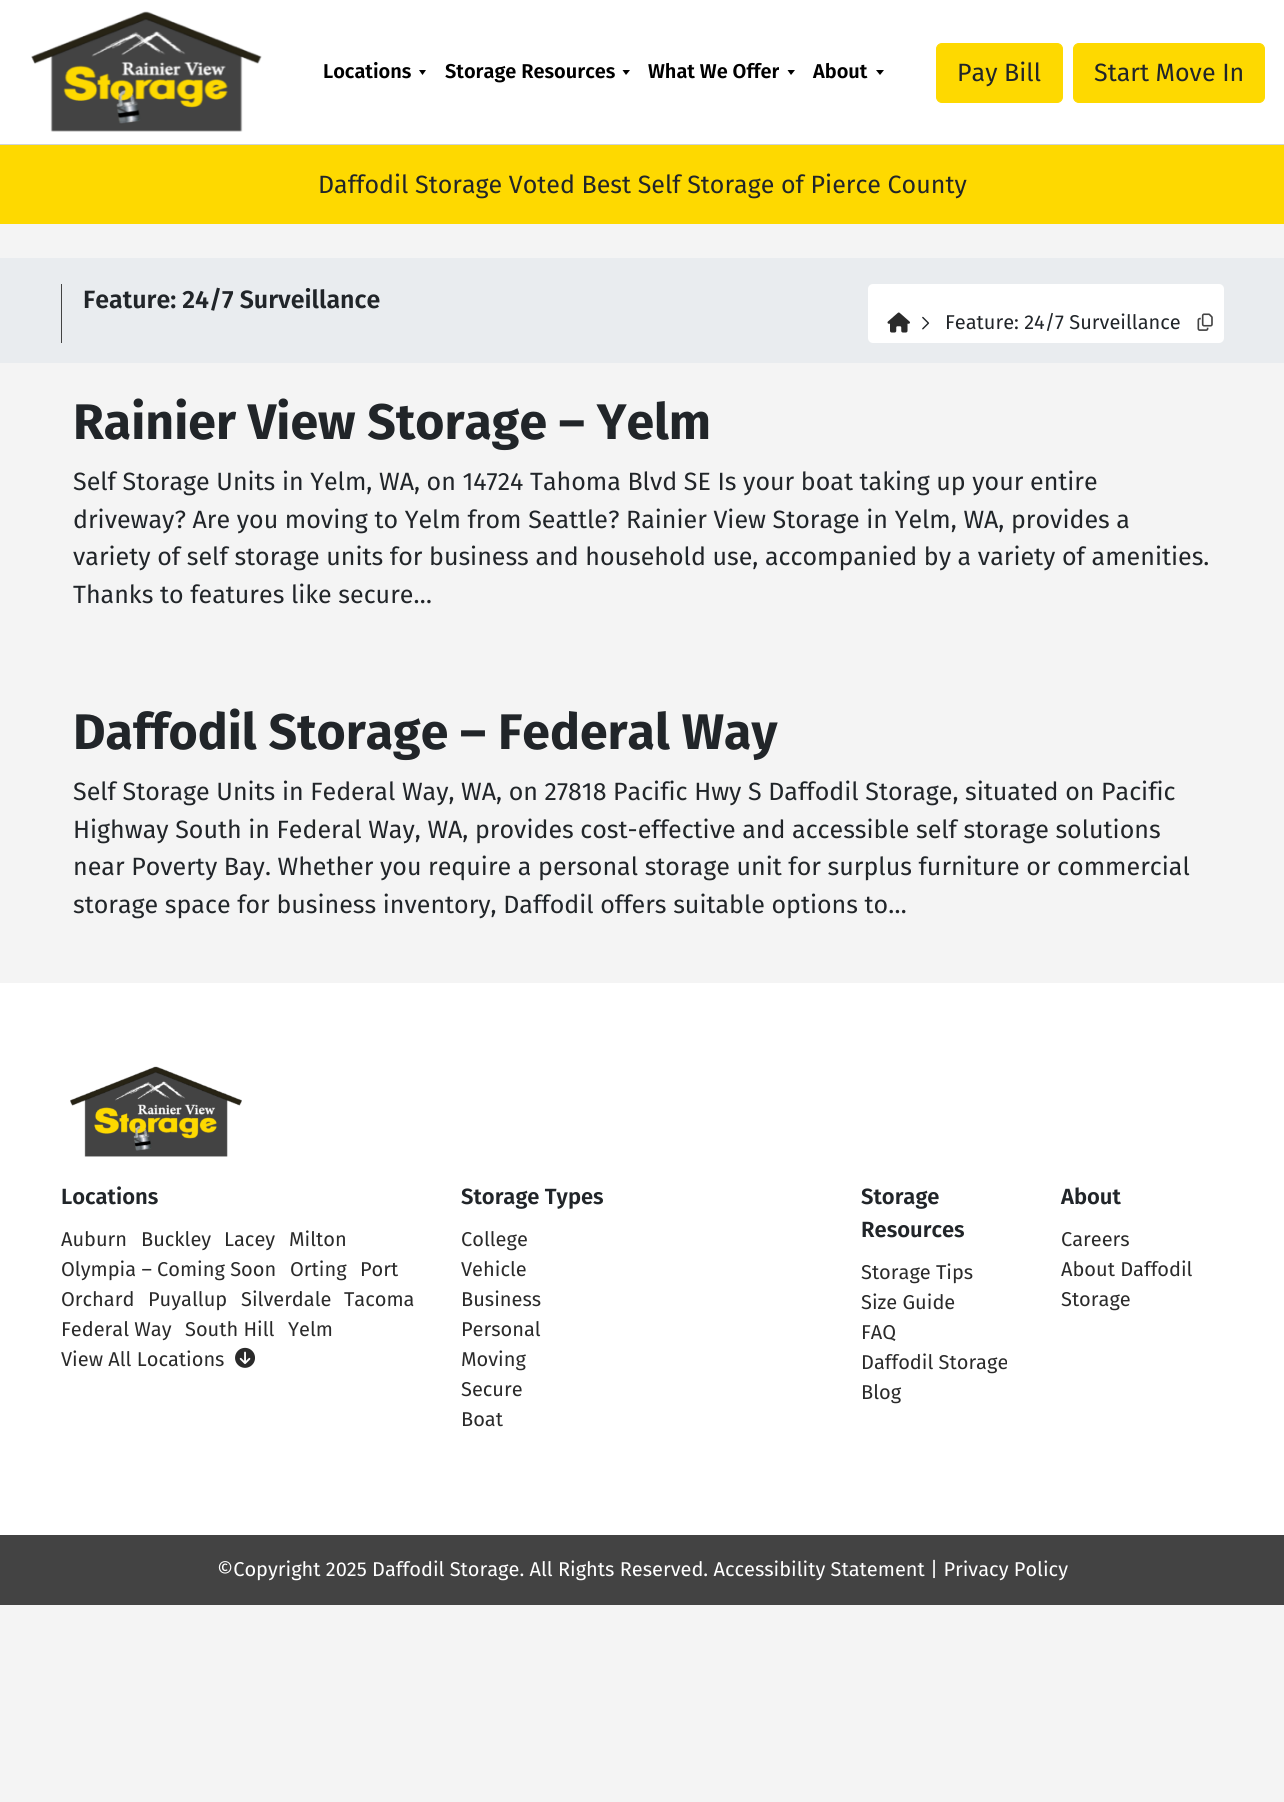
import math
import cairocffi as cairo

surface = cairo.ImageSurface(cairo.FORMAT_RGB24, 1284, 1802)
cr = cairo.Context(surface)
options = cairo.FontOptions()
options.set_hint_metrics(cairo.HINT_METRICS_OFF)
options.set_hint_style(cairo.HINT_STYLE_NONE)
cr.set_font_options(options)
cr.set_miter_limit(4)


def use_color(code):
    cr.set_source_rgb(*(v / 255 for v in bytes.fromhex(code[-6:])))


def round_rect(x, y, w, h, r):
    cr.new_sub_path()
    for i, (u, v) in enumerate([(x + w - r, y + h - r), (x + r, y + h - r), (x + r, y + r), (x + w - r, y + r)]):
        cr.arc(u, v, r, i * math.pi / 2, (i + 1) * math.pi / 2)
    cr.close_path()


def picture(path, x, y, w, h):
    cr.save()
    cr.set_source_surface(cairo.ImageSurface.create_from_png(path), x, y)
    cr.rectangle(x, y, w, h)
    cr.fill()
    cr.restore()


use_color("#f4f4f4")
cr.paint()
use_color("#ffffff")
cr.rectangle(0, 0, 1284, 144)
cr.fill()
use_color("#ced4da")
cr.rectangle(0, 144, 1284, 1)
cr.fill()
picture("img1.png", 31, 11, 231, 121)
cr.select_font_face("Fira Sans SemiBold")
cr.set_font_size(20)
use_color("#000000")
cr.move_to(323, 78)
cr.show_text("Locations")
cr.new_path()
cr.move_to(419, 70)
cr.line_to(426, 70)
cr.line_to(422.5, 75)
cr.close_path()
cr.fill()
cr.move_to(445, 78)
cr.show_text("Storage Resources")
cr.new_path()
cr.move_to(622.5, 70)
cr.line_to(630, 70)
cr.line_to(626, 75)
cr.close_path()
cr.fill()
cr.move_to(648, 78)
cr.show_text("What We Offer")
cr.new_path()
cr.move_to(787.5, 70)
cr.line_to(795, 70)
cr.line_to(791, 75)
cr.close_path()
cr.fill()
cr.move_to(813, 78)
cr.show_text("About")
cr.new_path()
cr.move_to(876, 70)
cr.line_to(884, 70)
cr.line_to(880, 75)
cr.close_path()
cr.fill()
use_color("#fed900")
round_rect(936.5, 43.5, 126, 59, 5.5)
cr.fill_preserve()
cr.set_line_width(1)
cr.stroke()
cr.select_font_face("Fira Sans")
cr.set_font_size(25)
use_color("#212529")
cr.move_to(957, 81)
cr.show_text("Pay Bill")
use_color("#fed900")
round_rect(1073.5, 43.5, 191, 59, 5.5)
cr.fill_preserve()
cr.stroke()
use_color("#212529")
cr.move_to(1094, 81)
cr.show_text("Start Move In")
use_color("#fed900")
cr.rectangle(0, 145, 1284, 79)
cr.fill()
use_color("#212529")
cr.move_to(318, 193)
cr.show_text("Daffodil Storage Voted Best Self Storage of Pierce County")
use_color("#e9ecef")
cr.rectangle(0, 258, 1284, 105)
cr.fill()
use_color("#434343")
cr.rectangle(61, 284, 1, 59)
cr.fill()
cr.select_font_face("Fira Sans SemiBold")
use_color("#212529")
cr.move_to(83, 308)
cr.show_text("Feature: 24/7 Surveillance")
use_color("#ffffff")
round_rect(868, 284, 356, 59, 5)
cr.fill()
picture("img2.png", 887, 312, 23, 21)
picture("img3.png", 922, 316, 8, 14)
cr.select_font_face("Fira Sans")
cr.set_font_size(20)
use_color("#212529")
cr.move_to(945, 329)
cr.show_text("Feature: 24/7 Surveillance")
picture("img4.png", 1197, 313, 16, 18)
cr.select_font_face("Fira Sans", cairo.FONT_SLANT_NORMAL, cairo.FONT_WEIGHT_BOLD)
cr.set_font_size(50)
cr.move_to(73, 439)
cr.show_text("Rainier View Storage – Yelm")
cr.select_font_face("Fira Sans")
cr.set_font_size(25)
cr.move_to(73, 490)
cr.show_text("Self Storage Units in Yelm, WA, on 14724 Tahoma Blvd SE Is your boat taking up your entire")
cr.move_to(73, 528)
cr.show_text("driveway? Are you moving to Yelm from Seattle? Rainier View Storage in Yelm, WA, provides a")
cr.move_to(73, 565)
cr.show_text("variety of self storage units for business and household use, accompanied by a variety of amenities.")
cr.move_to(73, 603)
cr.show_text("Thanks to features like secure…")
cr.select_font_face("Fira Sans", cairo.FONT_SLANT_NORMAL, cairo.FONT_WEIGHT_BOLD)
cr.set_font_size(50)
cr.move_to(73, 749)
cr.show_text("Daffodil Storage – Federal Way")
cr.select_font_face("Fira Sans")
cr.set_font_size(25)
cr.move_to(73, 800)
cr.show_text("Self Storage Units in Federal Way, WA, on 27818 Pacific Hwy S Daffodil Storage, situated on Pacific")
cr.move_to(73, 838)
cr.show_text("Highway South in Federal Way, WA, provides cost-effective and accessible self storage solutions")
cr.move_to(73, 875)
cr.show_text("near Poverty Bay. Whether you require a personal storage unit for surplus furniture or commercial")
cr.move_to(73, 913)
cr.show_text("storage space for business inventory, Daffodil offers suitable options to…")
use_color("#ffffff")
cr.rectangle(0, 983, 1284, 552)
cr.fill()
picture("img5.png", 70, 1066, 172, 91)
cr.select_font_face("Fira Sans SemiBold")
cr.set_font_size(22)
use_color("#212529")
cr.move_to(61, 1204)
cr.show_text("Locations")
cr.select_font_face("Fira Sans")
cr.set_font_size(20)
use_color("#2a2a2a")
cr.move_to(61, 1246)
cr.show_text("Auburn")
cr.move_to(141, 1246)
cr.show_text("Buckley")
cr.move_to(224, 1246)
cr.show_text("Lacey")
cr.move_to(289, 1246)
cr.show_text("Milton")
cr.move_to(61, 1276)
cr.show_text("Olympia – Coming Soon")
cr.move_to(290, 1276)
cr.show_text("Orting")
cr.move_to(360, 1276)
cr.show_text("Port")
cr.move_to(61, 1306)
cr.show_text("Orchard")
cr.move_to(148, 1306)
cr.show_text("Puyallup")
cr.move_to(241, 1306)
cr.show_text("Silverdale")
cr.move_to(344, 1306)
cr.show_text("Tacoma")
cr.move_to(61, 1336)
cr.show_text("Federal Way")
cr.move_to(185, 1336)
cr.show_text("South Hill")
cr.move_to(288, 1336)
cr.show_text("Yelm")
cr.move_to(61, 1366)
cr.show_text("View All Locations")
picture("img6.png", 235, 1347, 20, 21)
cr.select_font_face("Fira Sans SemiBold")
cr.set_font_size(22)
use_color("#212529")
cr.move_to(461, 1204)
cr.show_text("Storage Types")
cr.select_font_face("Fira Sans")
cr.set_font_size(20)
use_color("#2a2a2a")
cr.move_to(461, 1246)
cr.show_text("College")
cr.move_to(461, 1276)
cr.show_text("Vehicle")
cr.move_to(461, 1306)
cr.show_text("Business")
cr.move_to(461, 1336)
cr.show_text("Personal")
cr.move_to(461, 1366)
cr.show_text("Moving")
cr.move_to(461, 1396)
cr.show_text("Secure")
cr.move_to(461, 1426)
cr.show_text("Boat")
cr.select_font_face("Fira Sans SemiBold")
cr.set_font_size(22)
use_color("#212529")
cr.move_to(861, 1204)
cr.show_text("Storage")
cr.move_to(861, 1237)
cr.show_text("Resources")
cr.select_font_face("Fira Sans")
cr.set_font_size(20)
use_color("#2a2a2a")
cr.move_to(861, 1279)
cr.show_text("Storage Tips")
cr.move_to(861, 1309)
cr.show_text("Size Guide")
cr.move_to(861, 1339)
cr.show_text("FAQ")
cr.move_to(861, 1369)
cr.show_text("Daffodil Storage")
cr.move_to(861, 1399)
cr.show_text("Blog")
cr.select_font_face("Fira Sans SemiBold")
cr.set_font_size(22)
use_color("#212529")
cr.move_to(1061, 1204)
cr.show_text("About")
cr.select_font_face("Fira Sans")
cr.set_font_size(20)
use_color("#2a2a2a")
cr.move_to(1061, 1246)
cr.show_text("Careers")
cr.move_to(1061, 1276)
cr.show_text("About Daffodil")
cr.move_to(1061, 1306)
cr.show_text("Storage")
use_color("#434343")
cr.rectangle(0, 1535, 1284, 70)
cr.fill()
use_color("#ffffff")
cr.move_to(217, 1576)
cr.show_text("©Copyright 2025 Daffodil Storage. All Rights Reserved. Accessibility Statement | Privacy Policy")
surface.write_to_png("result.png")
